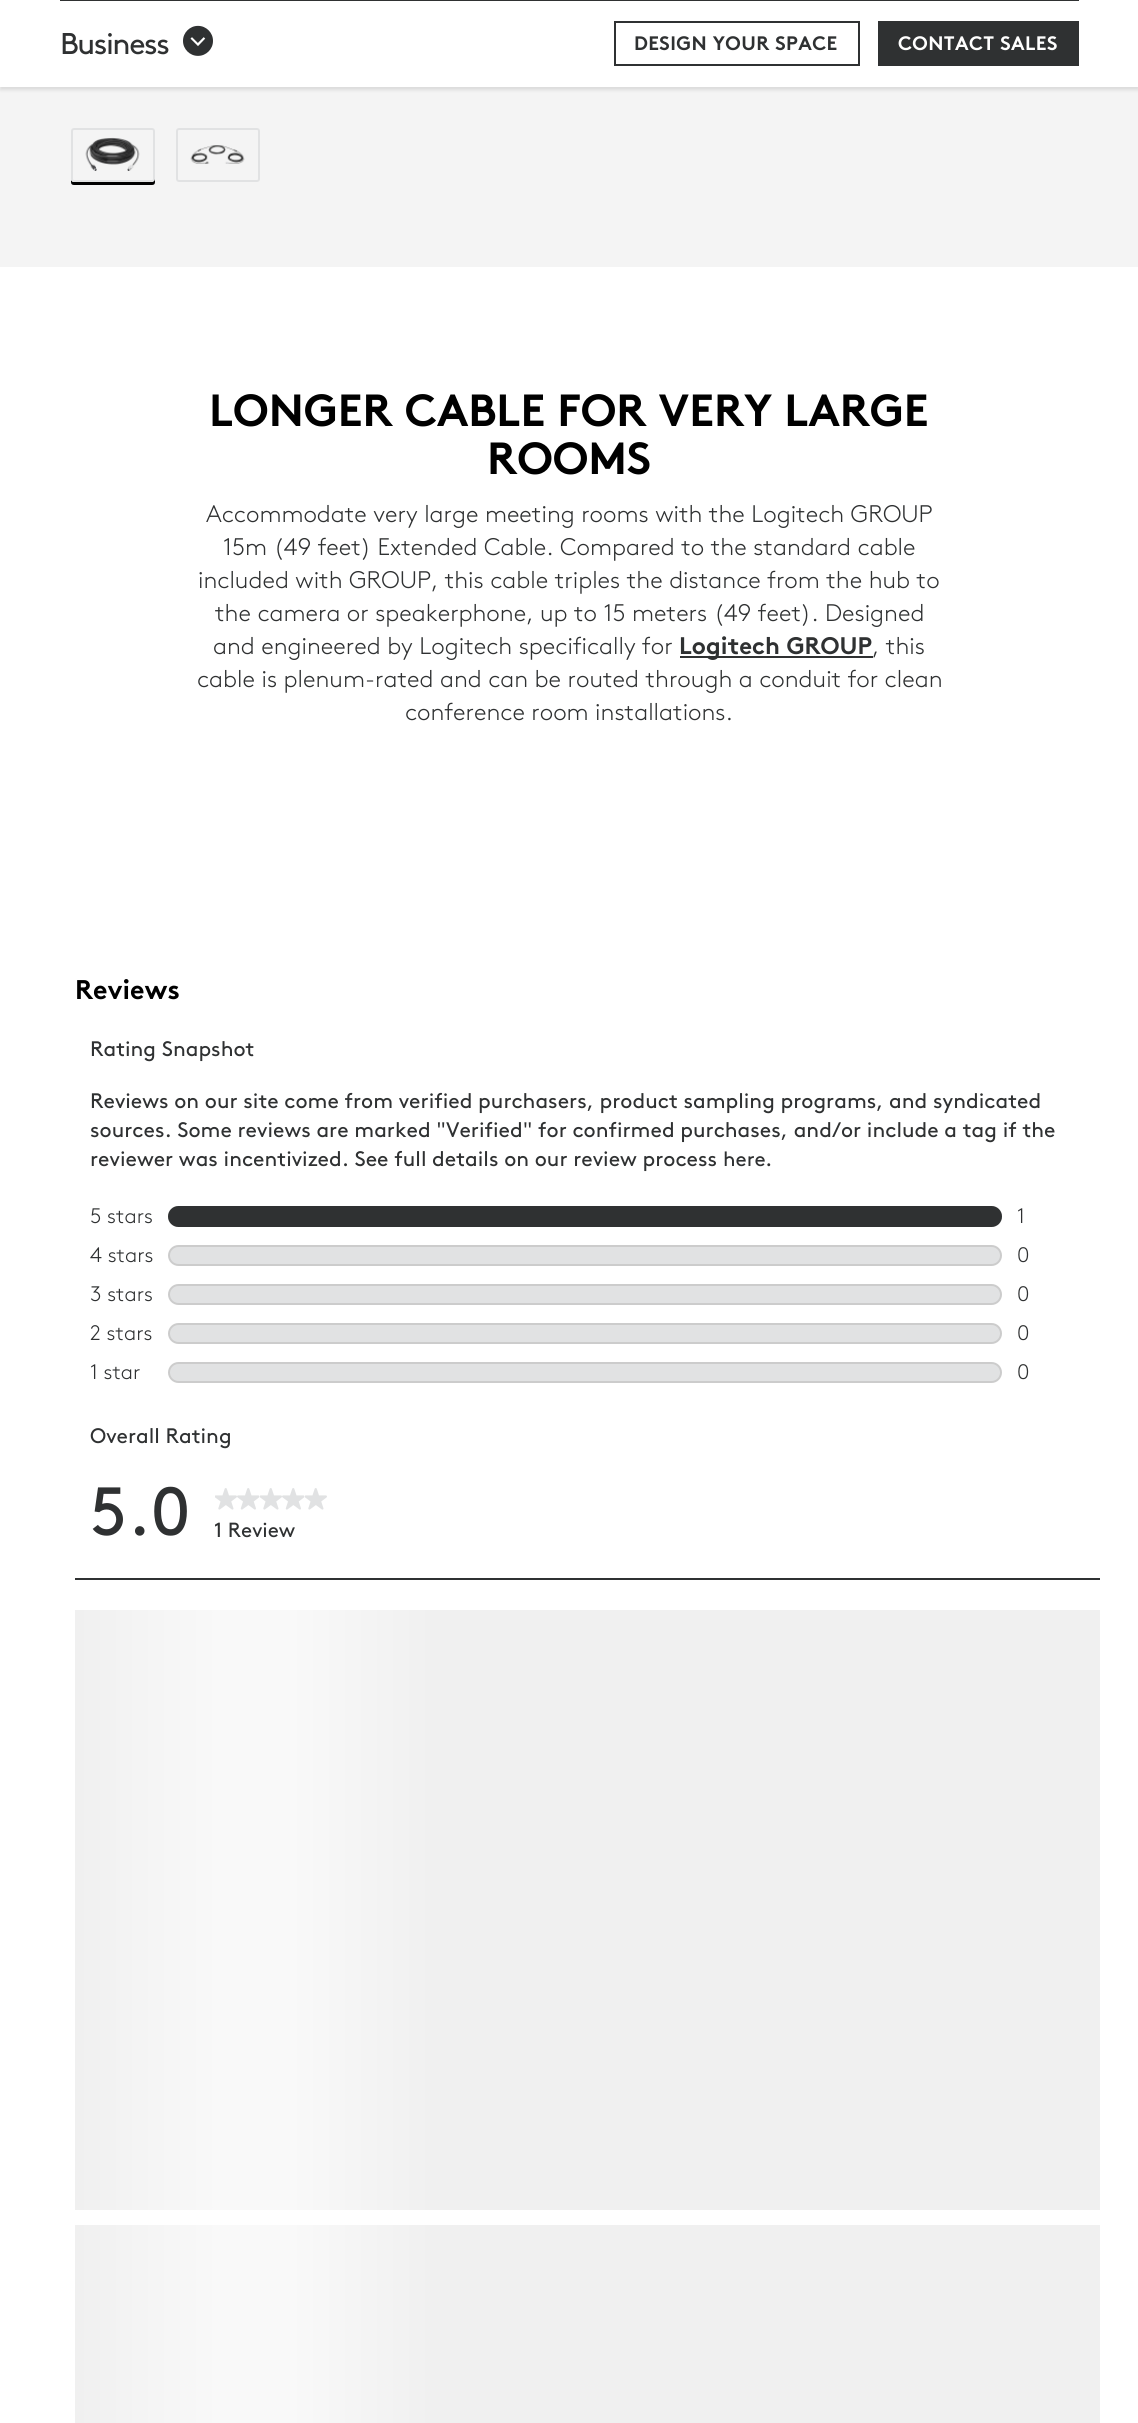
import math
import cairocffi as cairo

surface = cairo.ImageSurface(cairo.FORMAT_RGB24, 1138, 2423)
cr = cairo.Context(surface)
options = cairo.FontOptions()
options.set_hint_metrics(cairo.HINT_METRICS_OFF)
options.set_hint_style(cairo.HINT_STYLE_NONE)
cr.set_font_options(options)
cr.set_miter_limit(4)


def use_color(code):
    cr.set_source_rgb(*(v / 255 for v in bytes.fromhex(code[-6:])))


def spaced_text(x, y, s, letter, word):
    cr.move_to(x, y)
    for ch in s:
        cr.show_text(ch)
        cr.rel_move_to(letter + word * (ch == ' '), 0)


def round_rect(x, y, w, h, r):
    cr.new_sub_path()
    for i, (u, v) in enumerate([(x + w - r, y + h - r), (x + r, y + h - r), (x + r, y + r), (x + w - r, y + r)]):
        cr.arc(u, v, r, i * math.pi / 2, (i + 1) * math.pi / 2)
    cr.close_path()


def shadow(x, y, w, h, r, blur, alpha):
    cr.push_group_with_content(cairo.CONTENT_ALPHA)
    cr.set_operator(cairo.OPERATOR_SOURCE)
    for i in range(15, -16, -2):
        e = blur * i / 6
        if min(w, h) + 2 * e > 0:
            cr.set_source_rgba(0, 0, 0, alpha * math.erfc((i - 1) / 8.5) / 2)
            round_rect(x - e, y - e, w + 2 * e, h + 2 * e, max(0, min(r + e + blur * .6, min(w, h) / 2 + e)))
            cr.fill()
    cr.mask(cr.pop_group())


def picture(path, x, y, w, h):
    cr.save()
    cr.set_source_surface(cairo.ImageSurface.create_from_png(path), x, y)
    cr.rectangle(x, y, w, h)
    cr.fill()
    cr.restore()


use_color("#ffffff")
cr.paint()
use_color("#f4f4f4")
cr.rectangle(0, 87, 1138, 180)
cr.fill()
use_color("#000000")
shadow(0, 2, 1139, 88, 0, 1.5, 0.1)
use_color("#ffffff")
cr.rectangle(0, 0, 1138, 87)
cr.fill()
use_color("#2f3132")
cr.rectangle(60, 0, 1019, 1)
cr.fill()
cr.select_font_face("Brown")
cr.set_font_size(30)
spaced_text(60, 54, "Business", -1.5, 0)
picture("img1.png", 183, 25, 30, 31)
cr.rectangle(615, 22, 244, 43)
cr.stroke()
cr.select_font_face("Brown", cairo.FONT_SLANT_NORMAL, cairo.FONT_WEIGHT_BOLD)
cr.set_font_size(19.5)
spaced_text(634, 50, "DESIGN YOUR SPACE", 0.4, 0)
cr.rectangle(878, 21, 201, 45)
cr.fill()
use_color("#ffffff")
spaced_text(898, 50, "CONTACT SALES", 0.4, 0)
use_color("#000000")
cr.new_path()
cr.move_to(71, 180)
cr.line_to(71, 182)
cr.curve_to(71, 184, 72, 185, 74, 185)
cr.line_to(152, 185)
cr.curve_to(154, 185, 155, 184, 155, 182)
cr.line_to(155, 134)
cr.line_to(154, 132)
cr.line_to(154, 178)
cr.curve_to(154, 180, 153, 182, 152, 182)
cr.line_to(74, 182)
cr.curve_to(72, 182, 72, 181, 71, 180)
cr.close_path()
cr.fill()
round_rect(72, 129, 82, 52, 2)
use_color("#e1e2e3")
cr.stroke()
picture("img2.png", 85, 137, 55, 34)
round_rect(177, 129, 82, 52, 2)
cr.stroke()
picture("img3.png", 190, 145, 55, 19)
cr.set_font_size(45)
use_color("#000000")
cr.move_to(209, 426)
cr.show_text("LONGER CABLE FOR VERY LARGE")
cr.move_to(487, 474)
cr.show_text("ROOMS")
cr.select_font_face("Brown Light")
cr.set_font_size(24)
use_color("#2f3132")
cr.move_to(206, 522)
cr.show_text("Accommodate very large meeting rooms with the Logitech GROUP")
cr.move_to(223, 555)
cr.show_text("15m (49 feet) Extended Cable. Compared to the standard cable")
cr.move_to(198, 588)
cr.show_text("included with GROUP, this cable triples the distance from the hub to")
cr.move_to(215, 621)
cr.show_text("the camera or speakerphone, up to 15 meters (49 feet). Designed")
cr.move_to(213, 654)
cr.show_text("and engineered by Logitech specifically for")
cr.rectangle(680, 656, 193, 2)
cr.fill()
cr.select_font_face("Brown", cairo.FONT_SLANT_NORMAL, cairo.FONT_WEIGHT_BOLD)
cr.move_to(679, 654)
cr.show_text("Logitech GROUP")
cr.select_font_face("Brown Light")
cr.move_to(872, 654)
cr.show_text(", this")
cr.move_to(197, 687)
cr.show_text("cable is plenum-rated and can be routed through a conduit for clean")
cr.move_to(405, 720)
cr.show_text("conference room installations.")
cr.select_font_face("Brown", cairo.FONT_SLANT_NORMAL, cairo.FONT_WEIGHT_BOLD)
cr.set_font_size(27)
use_color("#000000")
cr.move_to(75, 999)
cr.show_text("Reviews")
use_color("#2f3132")
cr.rectangle(75, 1578, 1025, 2)
cr.fill()
cr.select_font_face("Brown")
cr.set_font_size(21)
cr.move_to(90, 1056)
cr.show_text("Rating Snapshot")
cr.move_to(90, 1108)
cr.show_text("Reviews on our site come from verified purchasers, product sampling programs, and syndicated")
cr.move_to(90, 1137)
cr.show_text("sources. Some reviews are marked \"Verified\" for confirmed purchases, and/or include a tag if the")
cr.move_to(90, 1166)
cr.show_text("reviewer was incentivized. See full details on our review process")
cr.set_font_size(20.5)
cr.move_to(723, 1166)
cr.show_text("here")
cr.set_font_size(21)
cr.move_to(765, 1166)
cr.show_text(".")
cr.select_font_face("Brown Light")
cr.move_to(90, 1223)
cr.show_text("5 stars")
round_rect(169, 1207, 832, 19, 9.5)
use_color("#cccccc")
cr.stroke()
use_color("#2f3132")
round_rect(168, 1206, 834, 21, 10.5)
cr.fill()
cr.move_to(1017, 1223)
cr.show_text("1")
cr.move_to(90, 1262)
cr.show_text("4 stars")
use_color("#e1e2e3")
round_rect(169, 1246, 832, 19, 9.5)
cr.fill_preserve()
use_color("#cccccc")
cr.stroke()
use_color("#2f3132")
cr.move_to(1017, 1262)
cr.show_text("0")
cr.move_to(90, 1301)
cr.show_text("3 stars")
use_color("#e1e2e3")
round_rect(169, 1285, 832, 19, 9.5)
cr.fill_preserve()
use_color("#cccccc")
cr.stroke()
use_color("#2f3132")
cr.move_to(1017, 1301)
cr.show_text("0")
cr.move_to(90, 1340)
cr.show_text("2 stars")
use_color("#e1e2e3")
round_rect(169, 1324, 832, 19, 9.5)
cr.fill_preserve()
use_color("#cccccc")
cr.stroke()
use_color("#2f3132")
cr.move_to(1017, 1340)
cr.show_text("0")
cr.move_to(90, 1379)
cr.show_text("1 star")
use_color("#e1e2e3")
round_rect(169, 1363, 832, 19, 9.5)
cr.fill_preserve()
use_color("#cccccc")
cr.stroke()
use_color("#2f3132")
cr.move_to(1017, 1379)
cr.show_text("0")
cr.select_font_face("Brown")
cr.move_to(90, 1443)
cr.show_text("Overall Rating")
cr.set_font_size(68)
cr.move_to(90, 1535)
cr.show_text("5.0")
picture("img4.png", 215, 1488, 22, 22)
picture("img5.png", 237, 1488, 23, 22)
picture("img4.png", 260, 1488, 22, 22)
picture("img5.png", 282, 1488, 23, 22)
picture("img4.png", 305, 1488, 22, 22)
cr.set_font_size(20.5)
cr.move_to(214, 1537)
cr.show_text("1 Review")
use_color("#f0f0f0")
cr.rectangle(75, 1610, 1025, 600)
cr.fill()
gradient = cairo.LinearGradient(75, 1910, 434, 1910)
gradient.add_color_stop_rgba(0, 0.941, 0.941, 0.941, 1)
gradient.add_color_stop_rgba(0.4, 0.976, 0.976, 0.976, 1)
gradient.add_color_stop_rgba(0.6, 0.976, 0.976, 0.976, 1)
gradient.add_color_stop_rgba(1, 0.941, 0.941, 0.941, 1)
cr.set_source(gradient)
cr.new_path()
cr.move_to(83, 1610)
cr.line_to(434, 1610)
cr.line_to(434, 2210)
cr.line_to(83, 2210)
cr.curve_to(78.5, 2210, 75, 2206.5, 75, 2202)
cr.line_to(75, 1618)
cr.curve_to(75, 1613.5, 78.5, 1610, 83, 1610)
cr.close_path()
cr.fill()
use_color("#f0f0f0")
cr.rectangle(75, 2225, 1025, 198)
cr.fill()
gradient = cairo.LinearGradient(75, 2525, 434, 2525)
gradient.add_color_stop_rgba(0, 0.941, 0.941, 0.941, 1)
gradient.add_color_stop_rgba(0.4, 0.976, 0.976, 0.976, 1)
gradient.add_color_stop_rgba(0.6, 0.976, 0.976, 0.976, 1)
gradient.add_color_stop_rgba(1, 0.941, 0.941, 0.941, 1)
cr.set_source(gradient)
cr.new_path()
cr.move_to(83, 2225)
cr.line_to(434, 2225)
cr.line_to(434, 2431)
cr.line_to(83, 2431)
cr.curve_to(78.5, 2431, 75, 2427.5, 75, 2423)
cr.line_to(75, 2233)
cr.curve_to(75, 2228.5, 78.5, 2225, 83, 2225)
cr.close_path()
cr.fill()
surface.write_to_png("result.png")
